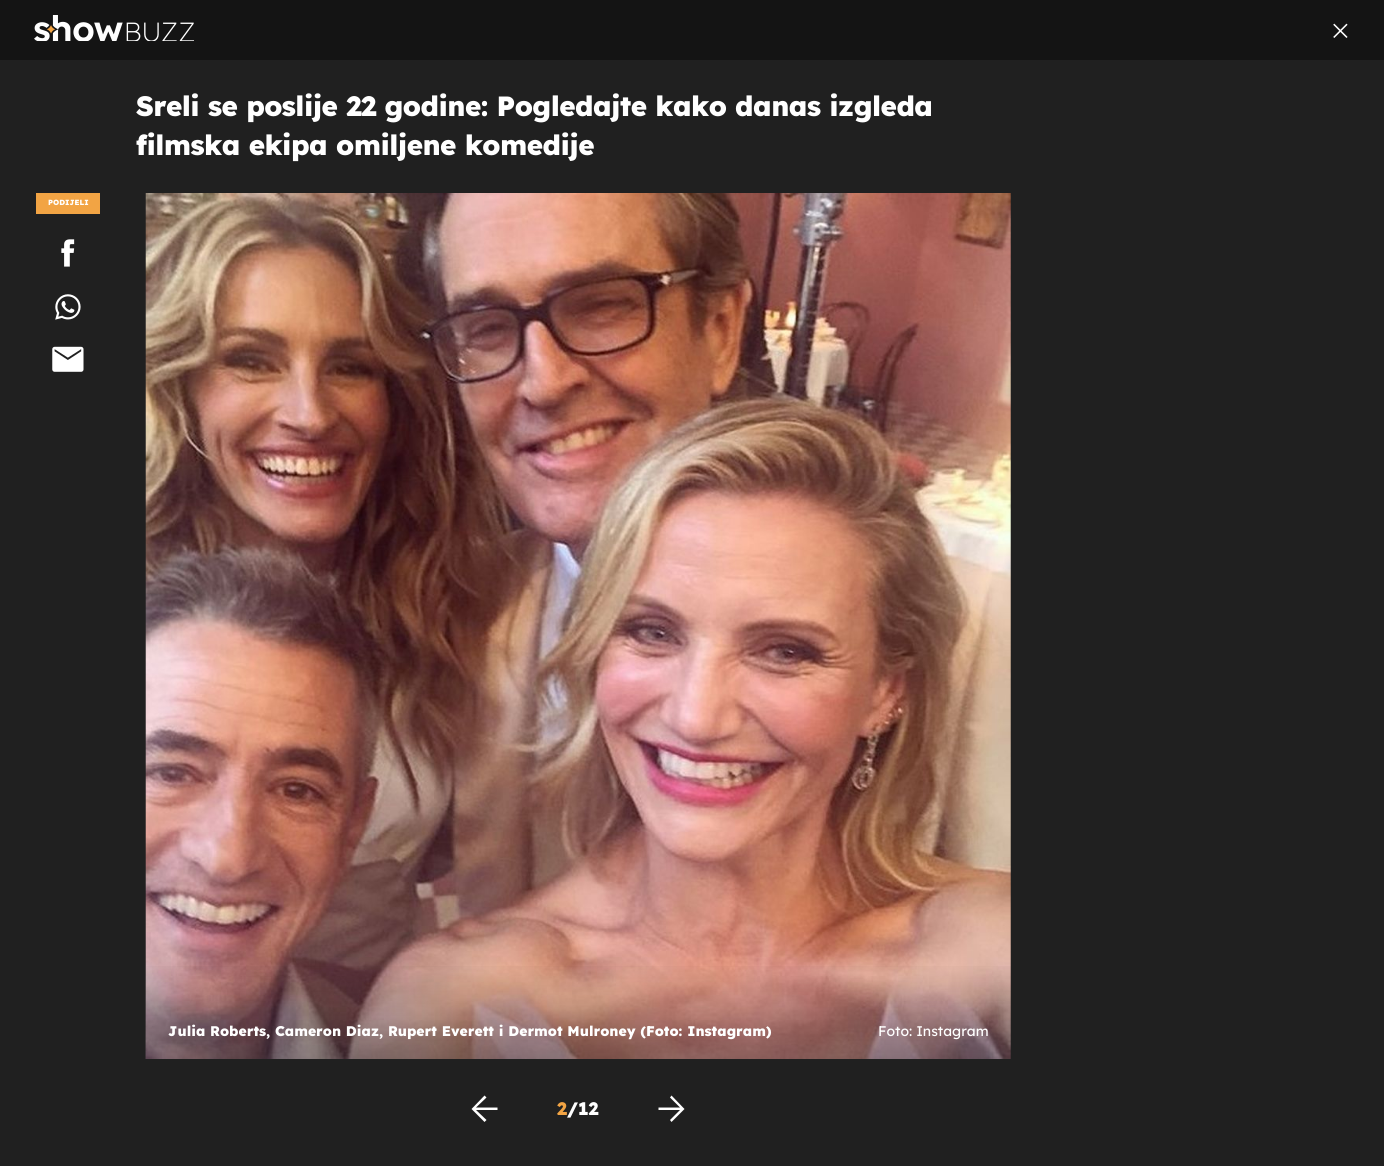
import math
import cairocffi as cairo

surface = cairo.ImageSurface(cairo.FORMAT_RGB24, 1384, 1166)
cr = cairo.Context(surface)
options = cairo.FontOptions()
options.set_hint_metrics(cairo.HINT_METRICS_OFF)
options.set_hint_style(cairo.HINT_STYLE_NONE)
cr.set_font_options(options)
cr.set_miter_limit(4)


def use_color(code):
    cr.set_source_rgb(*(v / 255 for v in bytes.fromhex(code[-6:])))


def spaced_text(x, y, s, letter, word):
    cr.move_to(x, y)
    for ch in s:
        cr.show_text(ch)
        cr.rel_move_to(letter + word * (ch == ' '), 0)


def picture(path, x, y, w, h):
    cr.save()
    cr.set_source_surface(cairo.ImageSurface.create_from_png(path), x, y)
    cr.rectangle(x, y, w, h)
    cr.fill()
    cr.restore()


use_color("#202020")
cr.paint()
use_color("#141414")
cr.rectangle(0, 0, 1384, 60)
cr.fill()
picture("img1.png", 34, 15, 160, 26)
picture("img2.png", 1333, 23, 15, 15)
cr.select_font_face("Lexend ExtraBold")
cr.set_font_size(27.85)
use_color("#ffffff")
spaced_text(136, 116, "Sreli se poslije 22 godine: Pogledajte kako danas izgleda", -0.55, 0)
spaced_text(136, 155, "filmska ekipa omiljene komedije", -0.55, 0)
use_color("#f2a444")
cr.rectangle(36, 193, 64, 21)
cr.fill()
cr.set_font_size(7.5)
use_color("#ffffff")
cr.move_to(48, 205)
cr.show_text("PODIJELI")
picture("img3.png", 61, 239, 14, 28)
picture("img4.png", 55, 294, 26, 26)
picture("img5.png", 52, 346, 32, 26)
picture("img6.png", 145, 193, 866, 866)
gradient = cairo.LinearGradient(578, 1059, 578, 961)
gradient.add_color_stop_rgba(0, 0.078, 0.078, 0.078, 0.4)
gradient.add_color_stop_rgba(1, 0.078, 0.078, 0.078, 0)
cr.set_source(gradient)
cr.rectangle(146, 966, 865, 93)
cr.fill()
cr.set_font_size(14)
use_color("#ffffff")
cr.move_to(168, 1036)
cr.show_text("Julia Roberts, Cameron Diaz, Rupert Everett i Dermot Mulroney (Foto: Instagram)")
cr.select_font_face("Lexend")
cr.move_to(878, 1036)
cr.show_text("Foto: Instagram")
cr.new_path()
cr.move_to(484.5, 1122)
cr.line_to(486.5, 1120)
cr.line_to(476, 1110)
cr.line_to(497.5, 1110)
cr.line_to(497.5, 1107.5)
cr.line_to(476, 1107.5)
cr.line_to(486.5, 1097.5)
cr.line_to(484.5, 1095.5)
cr.line_to(471.5, 1109)
cr.close_path()
cr.fill()
cr.select_font_face("Lexend ExtraBold")
cr.set_font_size(18)
use_color("#f2a444")
cr.move_to(557, 1115)
cr.show_text("2")
use_color("#ffffff")
cr.move_to(567, 1115)
cr.show_text("/12")
cr.new_path()
cr.move_to(671.5, 1122)
cr.line_to(670, 1120)
cr.line_to(680, 1110)
cr.line_to(658.5, 1110)
cr.line_to(658.5, 1107.5)
cr.line_to(680, 1107.5)
cr.line_to(670, 1097.5)
cr.line_to(671.5, 1095.5)
cr.line_to(684.5, 1109)
cr.close_path()
cr.fill()
surface.write_to_png("result.png")
